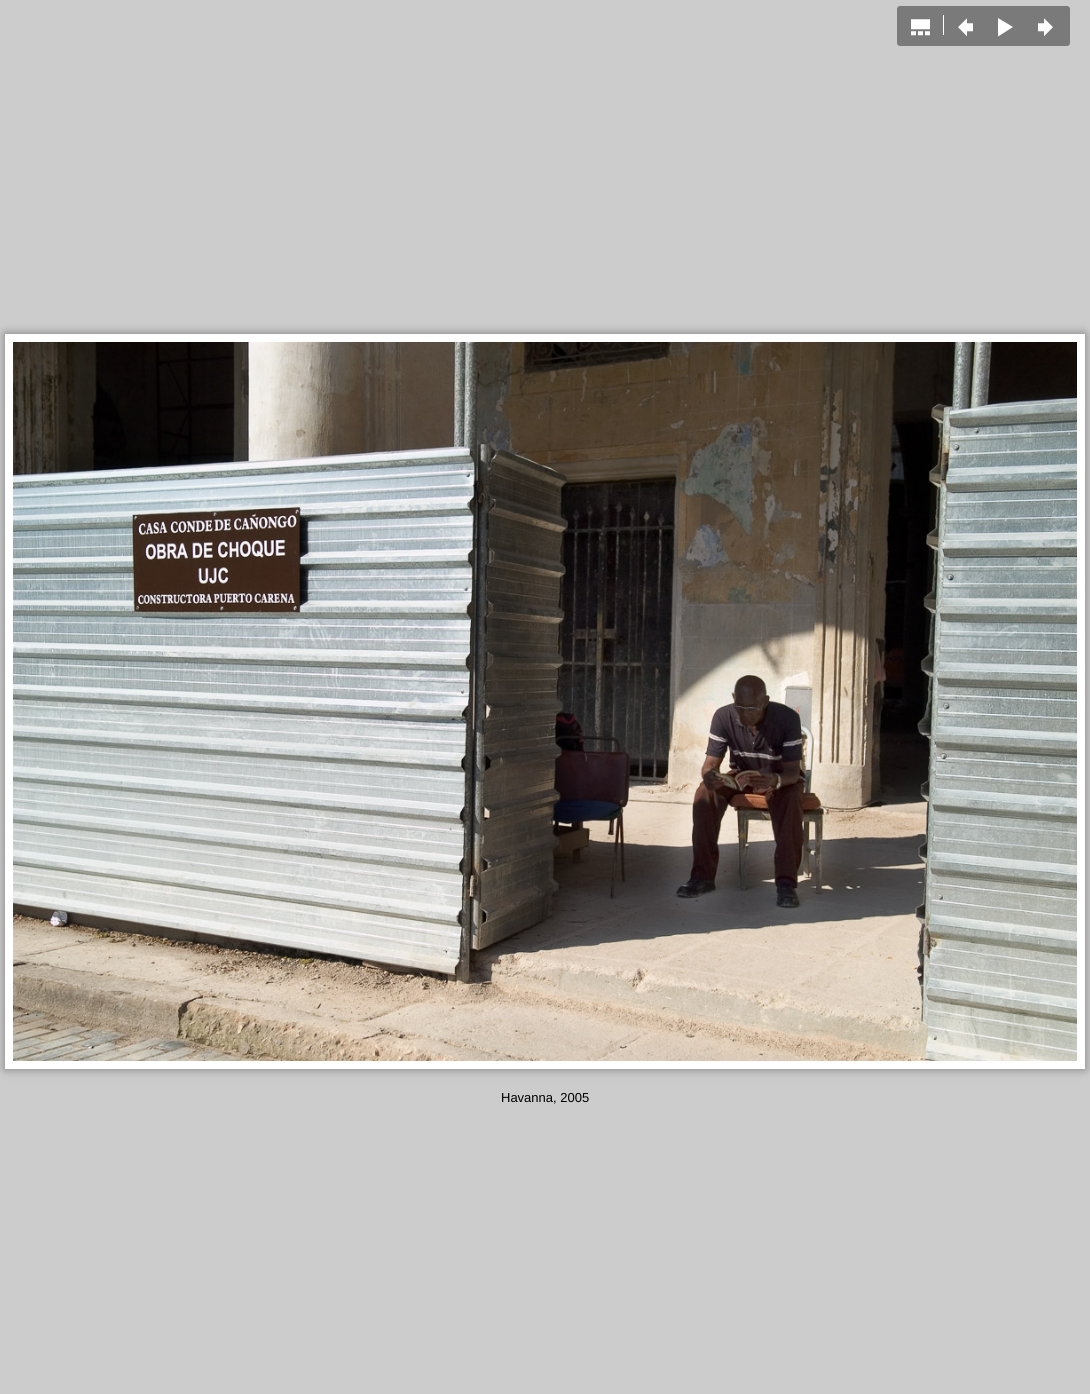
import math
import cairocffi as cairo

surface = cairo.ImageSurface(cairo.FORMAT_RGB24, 1090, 1394)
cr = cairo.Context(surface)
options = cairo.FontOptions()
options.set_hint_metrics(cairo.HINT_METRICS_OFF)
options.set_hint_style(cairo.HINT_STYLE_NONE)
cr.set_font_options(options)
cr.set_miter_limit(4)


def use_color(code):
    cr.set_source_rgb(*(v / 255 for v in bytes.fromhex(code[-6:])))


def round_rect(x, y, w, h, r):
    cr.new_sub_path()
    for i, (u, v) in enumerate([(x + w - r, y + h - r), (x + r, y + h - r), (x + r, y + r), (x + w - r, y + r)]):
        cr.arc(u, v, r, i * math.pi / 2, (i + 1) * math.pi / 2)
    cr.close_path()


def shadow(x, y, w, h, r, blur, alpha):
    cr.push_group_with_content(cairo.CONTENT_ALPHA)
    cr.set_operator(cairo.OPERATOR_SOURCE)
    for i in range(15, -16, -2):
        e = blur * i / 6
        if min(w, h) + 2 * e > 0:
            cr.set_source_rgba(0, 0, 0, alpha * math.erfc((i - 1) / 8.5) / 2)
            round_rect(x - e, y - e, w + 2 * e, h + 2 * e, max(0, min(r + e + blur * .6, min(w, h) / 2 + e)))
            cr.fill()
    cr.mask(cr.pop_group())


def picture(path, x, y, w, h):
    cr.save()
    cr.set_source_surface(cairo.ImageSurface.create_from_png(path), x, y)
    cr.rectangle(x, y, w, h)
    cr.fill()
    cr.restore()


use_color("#cccccc")
cr.paint()
use_color("#7a7a7a")
round_rect(897, 6, 173, 40, 3)
cr.fill()
picture("img1.png", 911, 19, 19, 17)
use_color("#ffffff")
cr.rectangle(943, 15, 1, 20)
cr.fill()
picture("img2.png", 958, 18, 15, 19)
cr.new_path()
cr.move_to(998, 36.5)
cr.line_to(998, 18)
cr.line_to(1013, 27)
cr.close_path()
cr.fill()
picture("img3.png", 1038, 18, 15, 19)
use_color("#000000")
shadow(5, 334, 1080, 735, 0, 5, 0.4)
cr.rectangle(9, 338, 1072, 727)
use_color("#ffffff")
cr.set_line_width(8)
cr.stroke()
picture("img4.png", 13, 342, 1064, 719)
cr.select_font_face("Liberation Sans")
cr.set_font_size(13)
use_color("#000000")
cr.move_to(501, 1102)
cr.show_text("Havanna, 2005")
surface.write_to_png("result.png")
